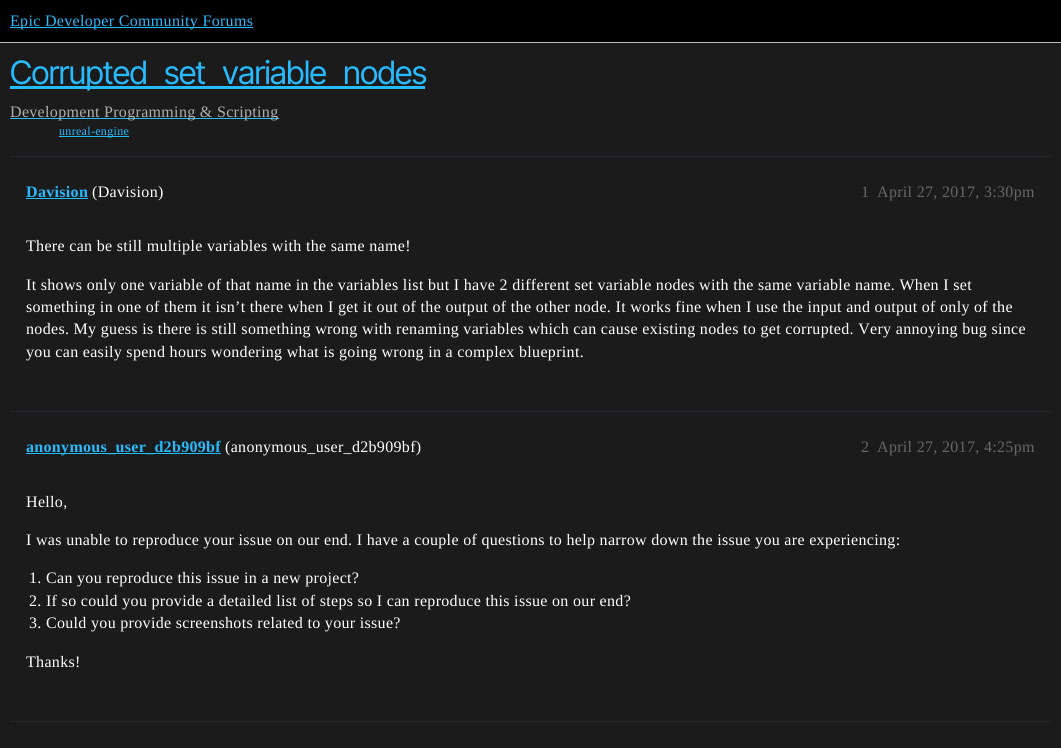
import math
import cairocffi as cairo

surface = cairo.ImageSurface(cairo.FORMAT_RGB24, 1061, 748)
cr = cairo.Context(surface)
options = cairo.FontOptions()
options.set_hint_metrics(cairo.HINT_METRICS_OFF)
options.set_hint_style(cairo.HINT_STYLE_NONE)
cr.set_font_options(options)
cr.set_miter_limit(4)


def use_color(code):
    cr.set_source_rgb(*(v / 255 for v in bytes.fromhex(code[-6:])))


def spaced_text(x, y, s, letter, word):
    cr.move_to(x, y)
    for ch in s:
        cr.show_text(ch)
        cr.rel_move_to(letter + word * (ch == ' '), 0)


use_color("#1b1b1b")
cr.paint()
use_color("#000000")
cr.rectangle(0, 0, 1061, 42)
cr.fill()
use_color("#bdbdbd")
cr.rectangle(0, 42, 1061, 1)
cr.fill()
use_color("#26bbff")
cr.rectangle(10, 27, 243, 1)
cr.fill()
cr.select_font_face("Liberation Serif")
cr.set_font_size(16)
spaced_text(10, 26, "Epic Developer Community Forums", 0.32, 0)
cr.rectangle(10, 86, 415, 3)
cr.fill()
cr.select_font_face("Inter Tight")
cr.set_font_size(32.25)
spaced_text(10, 84, "Corrupted set variable nodes", -0.5, 10)
cr.rectangle(10, 118, 269, 1)
cr.fill()
cr.select_font_face("Liberation Serif")
cr.set_font_size(16)
use_color("#afafb0")
spaced_text(10, 117, "Development", 0.32, 0)
spaced_text(104, 117, "Programming & Scripting", 0.32, 0)
use_color("#26bbff")
cr.rectangle(59, 136, 70, 1)
cr.fill()
cr.set_font_size(12)
spaced_text(59, 135, "unreal-engine", 0.32, 0)
use_color("#28282c")
cr.rectangle(10, 156, 1041, 1)
cr.fill()
cr.select_font_face("Liberation Serif", cairo.FONT_SLANT_NORMAL, cairo.FONT_WEIGHT_BOLD)
cr.set_font_size(16)
use_color("#26bbff")
spaced_text(26, 197, "Davision", 0.32, 0)
cr.rectangle(26, 198, 62, 1)
cr.fill()
cr.select_font_face("Liberation Serif")
use_color("#ffffff")
spaced_text(92, 197, "(Davision)", 0.32, 0)
use_color("#666666")
spaced_text(861, 197, "1", 0.32, 0)
spaced_text(877, 197, "April 27, 2017, 3:30pm", 0.32, 0)
use_color("#ffffff")
spaced_text(26, 251, "There can be still multiple variables with the same name!", 0.32, 0)
spaced_text(26, 290, "It shows only one variable of that name in the variables list but I have 2 different set variable nodes with the same variable name. When I set", 0.32, 0)
spaced_text(26, 312, "something in one of them it isn’t there when I get it out of the output of the other node. It works fine when I use the input and output of only of the", 0.32, 0)
spaced_text(26, 334, "nodes. My guess is there is still something wrong with renaming variables which can cause existing nodes to get corrupted. Very annoying bug since", 0.32, 0)
spaced_text(26, 357, "you can easily spend hours wondering what is going wrong in a complex blueprint.", 0.32, 0)
use_color("#28282c")
cr.rectangle(10, 411, 1041, 1)
cr.fill()
use_color("#26bbff")
cr.rectangle(26, 453, 195, 1)
cr.fill()
cr.select_font_face("Liberation Serif", cairo.FONT_SLANT_NORMAL, cairo.FONT_WEIGHT_BOLD)
spaced_text(26, 452, "anonymous_user_d2b909bf", 0.32, 0)
cr.select_font_face("Liberation Serif")
use_color("#ffffff")
spaced_text(225, 452, "(anonymous_user_d2b909bf)", 0.32, 0)
use_color("#666666")
spaced_text(861, 452, "2", 0.32, 0)
spaced_text(877, 452, "April 27, 2017, 4:25pm", 0.32, 0)
use_color("#ffffff")
spaced_text(26, 507, "Hello,", 0.32, 0)
spaced_text(26, 545, "I was unable to reproduce your issue on our end. I have a couple of questions to help narrow down the issue you are experiencing:", 0.32, 0)
spaced_text(29, 583, "1. Can you reproduce this issue in a new project?", 0.32, 0)
spaced_text(29, 606, "2. If so could you provide a detailed list of steps so I can reproduce this issue on our end?", 0.32, 0)
spaced_text(29, 628, "3. Could you provide screenshots related to your issue?", 0.32, 0)
spaced_text(26, 667, "Thanks!", 0.32, 0)
use_color("#28282c")
cr.rectangle(10, 721, 1041, 1)
cr.fill()
surface.write_to_png("result.png")
